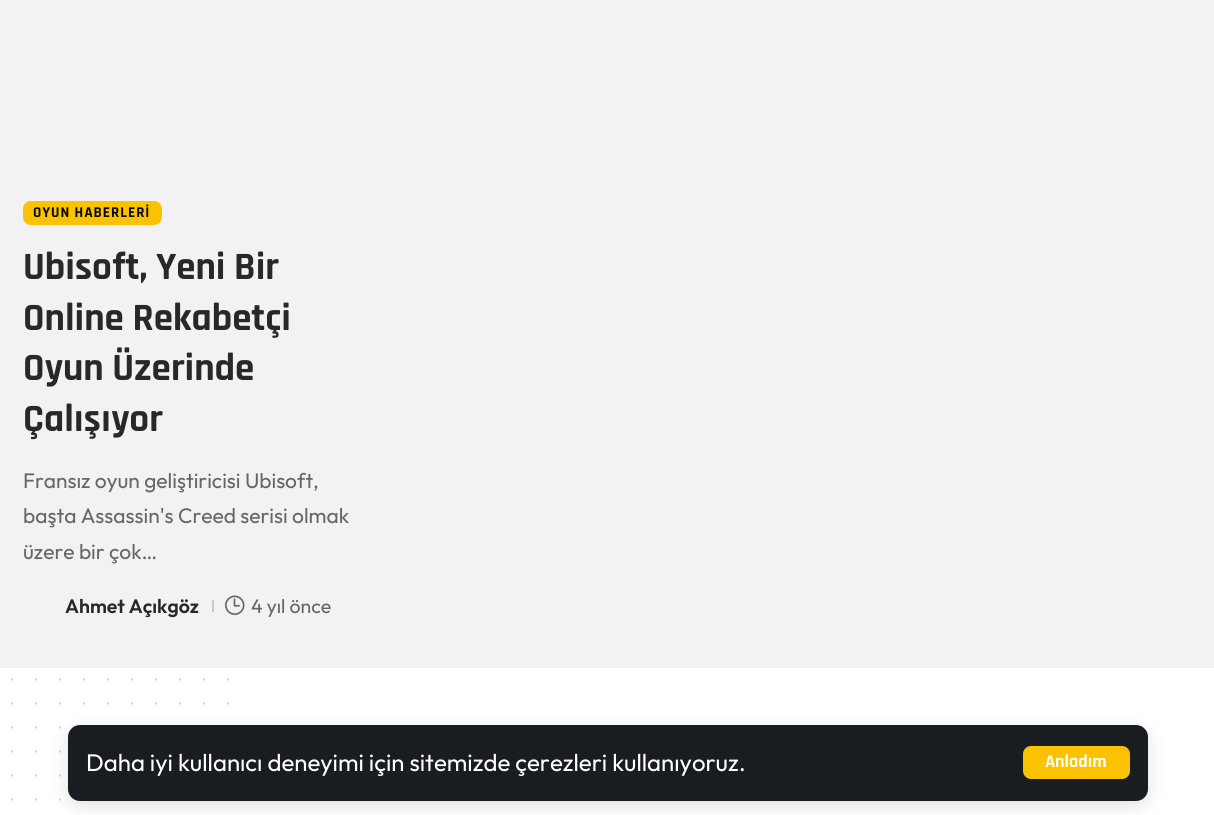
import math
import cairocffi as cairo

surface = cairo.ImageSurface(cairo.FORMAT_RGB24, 1214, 815)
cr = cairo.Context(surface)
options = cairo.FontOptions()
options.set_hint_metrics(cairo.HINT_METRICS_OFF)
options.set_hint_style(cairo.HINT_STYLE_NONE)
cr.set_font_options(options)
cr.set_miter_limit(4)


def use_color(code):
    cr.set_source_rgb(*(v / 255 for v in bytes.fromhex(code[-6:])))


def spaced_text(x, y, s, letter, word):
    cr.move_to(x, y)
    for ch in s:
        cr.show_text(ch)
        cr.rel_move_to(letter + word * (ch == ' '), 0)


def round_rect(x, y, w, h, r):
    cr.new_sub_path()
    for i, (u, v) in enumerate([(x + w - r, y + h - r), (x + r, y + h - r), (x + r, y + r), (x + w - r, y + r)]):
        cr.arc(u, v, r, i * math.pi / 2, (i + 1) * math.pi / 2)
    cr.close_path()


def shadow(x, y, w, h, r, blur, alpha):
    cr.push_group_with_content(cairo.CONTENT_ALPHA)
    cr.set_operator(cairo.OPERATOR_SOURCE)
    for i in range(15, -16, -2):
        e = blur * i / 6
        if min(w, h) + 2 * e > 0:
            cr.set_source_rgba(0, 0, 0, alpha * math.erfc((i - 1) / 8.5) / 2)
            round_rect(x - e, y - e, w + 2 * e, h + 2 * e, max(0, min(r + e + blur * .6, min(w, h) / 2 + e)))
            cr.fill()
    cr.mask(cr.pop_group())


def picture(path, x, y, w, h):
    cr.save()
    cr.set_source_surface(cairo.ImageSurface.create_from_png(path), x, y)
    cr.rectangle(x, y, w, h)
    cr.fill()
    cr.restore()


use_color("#f2f2f2")
cr.paint()
use_color("#fac200")
round_rect(23, 201, 139, 24, 8)
cr.fill()
cr.select_font_face("Rajdhani", cairo.FONT_SLANT_NORMAL, cairo.FONT_WEIGHT_BOLD)
cr.set_font_size(15)
use_color("#0a0a0a")
spaced_text(33, 217, "OYUN HABERLERİ", 1, 0)
cr.set_font_size(39)
use_color("#282828")
cr.move_to(23, 279)
cr.show_text("Ubisoft, Yeni Bir")
cr.move_to(23, 330)
cr.show_text("Online Rekabetçi")
cr.move_to(23, 380)
cr.show_text("Oyun Üzerinde")
cr.move_to(23, 431)
cr.show_text("Çalışıyor")
cr.select_font_face("Outfit")
cr.set_font_size(21)
use_color("#666666")
cr.move_to(23, 488)
cr.show_text("Fransız oyun geliştiricisi Ubisoft,")
cr.move_to(23, 523)
cr.show_text("başta Assassin's Creed serisi olmak")
cr.move_to(23, 559)
cr.show_text("üzere bir çok…")
cr.select_font_face("Outfit SemiBold")
cr.set_font_size(19.5)
use_color("#282828")
cr.move_to(65, 613)
cr.show_text("Ahmet Açıkgöz")
use_color("#c8c8c8")
cr.rectangle(212, 600, 2, 12)
cr.fill()
picture("img1.png", 225, 595, 20, 20)
cr.select_font_face("Outfit")
use_color("#666666")
cr.move_to(251, 613)
cr.show_text("4 yıl önce")
use_color("#ffffff")
cr.rectangle(0, 668, 1214, 147)
cr.fill()
cr.new_path()
cr.move_to(12, 679.5)
cr.line_to(228.3, 679.5)
use_color("#d4d4d4")
cr.set_line_width(2.2)
cr.set_line_cap(cairo.LINE_CAP_ROUND)
cr.set_dash([0, 24])
cr.stroke()
cr.new_path()
cr.move_to(12, 703.5)
cr.line_to(228.3, 703.5)
cr.stroke()
cr.new_path()
cr.move_to(12, 727.5)
cr.line_to(228.3, 727.5)
cr.stroke()
cr.new_path()
cr.move_to(12, 751.5)
cr.line_to(228.3, 751.5)
cr.stroke()
cr.new_path()
cr.move_to(12, 775.5)
cr.line_to(228.3, 775.5)
cr.stroke()
cr.new_path()
cr.move_to(12, 799.5)
cr.line_to(228.3, 799.5)
cr.stroke()
use_color("#000000")
shadow(68, 729, 1080, 77, 12, 9, 0.12)
use_color("#191c20")
round_rect(68, 725, 1080, 76, 12)
cr.fill()
cr.set_font_size(24)
use_color("#ffffff")
cr.move_to(86, 771)
cr.show_text("Daha iyi kullanıcı deneyimi için sitemizde çerezleri kullanıyoruz.")
use_color("#fac200")
round_rect(1023, 746, 107, 33, 8)
cr.fill()
cr.select_font_face("Rajdhani", cairo.FONT_SLANT_NORMAL, cairo.FONT_WEIGHT_BOLD)
cr.set_font_size(18)
use_color("#ffffff")
cr.move_to(1045, 767)
cr.show_text("Anladım")
surface.write_to_png("result.png")
